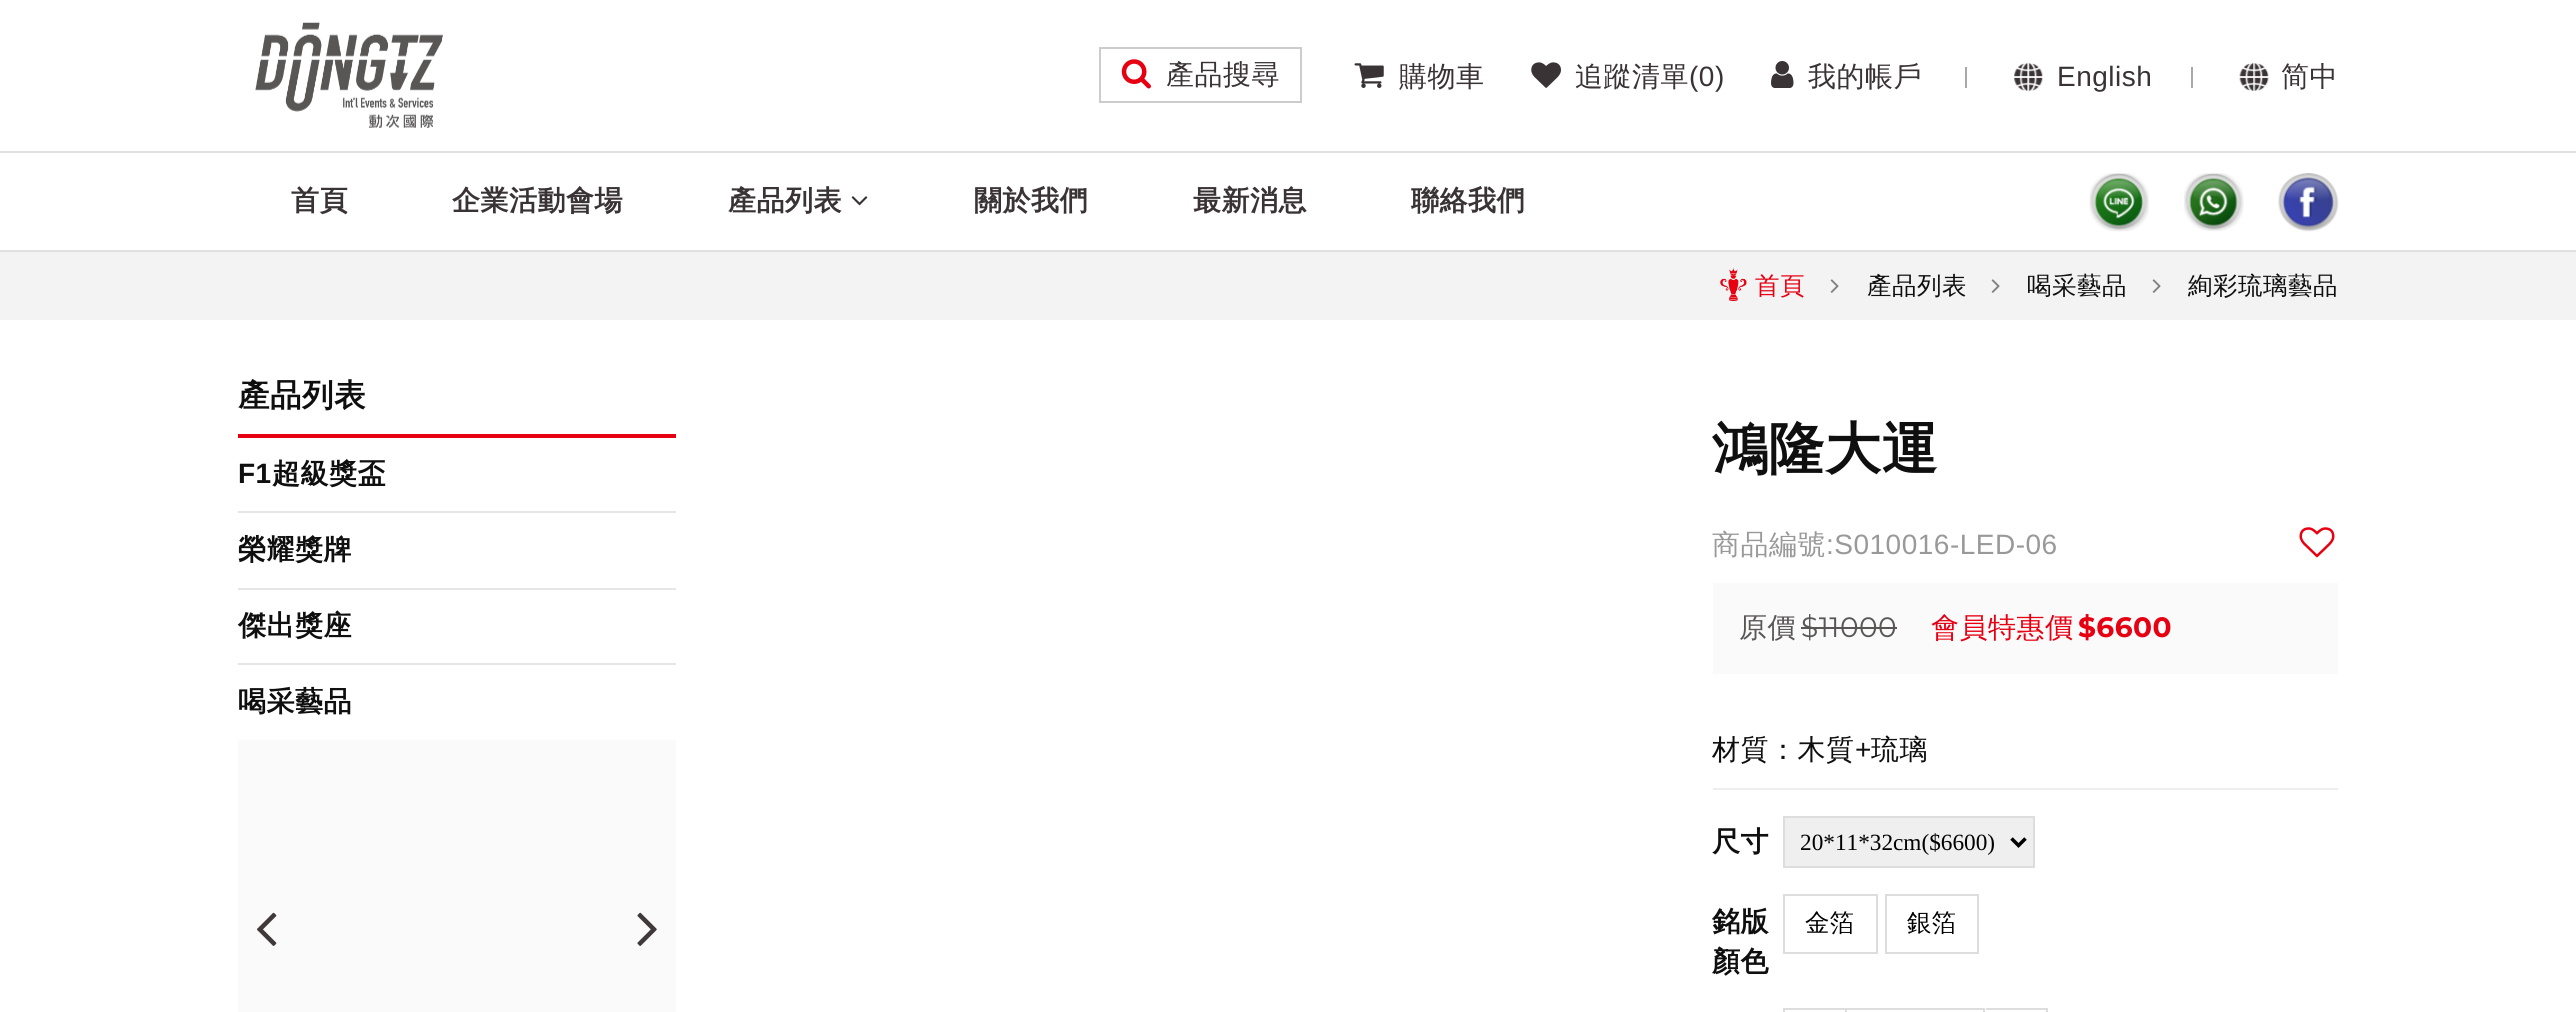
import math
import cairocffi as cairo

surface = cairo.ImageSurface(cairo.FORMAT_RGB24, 2576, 1012)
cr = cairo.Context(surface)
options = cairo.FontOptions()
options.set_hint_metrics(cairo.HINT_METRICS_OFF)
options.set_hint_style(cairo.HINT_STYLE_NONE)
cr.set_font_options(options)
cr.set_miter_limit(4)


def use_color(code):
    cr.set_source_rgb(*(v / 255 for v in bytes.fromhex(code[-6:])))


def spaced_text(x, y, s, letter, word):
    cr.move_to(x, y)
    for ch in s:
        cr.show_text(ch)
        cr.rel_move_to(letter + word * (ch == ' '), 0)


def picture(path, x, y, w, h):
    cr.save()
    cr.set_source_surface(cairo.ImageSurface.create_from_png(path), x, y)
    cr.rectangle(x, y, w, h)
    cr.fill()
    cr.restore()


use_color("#ffffff")
cr.paint()
use_color("#e0e0e0")
cr.rectangle(0, 250, 2576, 2)
cr.fill()
cr.rectangle(0, 151, 2576, 2)
cr.fill()
picture("img1.png", 255, 22, 188, 106)
cr.rectangle(1100, 48, 201, 54)
use_color("#cccccc")
cr.stroke()
picture("img2.png", 1121, 59, 30, 30)
cr.select_font_face("WenQuanYi Zen Hei Medium")
cr.set_font_size(28)
use_color("#3a3335")
spaced_text(1166, 84, "產品搜尋", 0.5, 0)
picture("img3.png", 1354, 63, 30, 25)
spaced_text(1399, 86, "購物車", 0.5, 0)
picture("img4.png", 1531, 62, 30, 26)
spaced_text(1575, 86, "追蹤清單", 0.5, 0)
cr.select_font_face("Liberation Sans")
spaced_text(1689, 86, "(0)", 0.5, 0)
picture("img5.png", 1771, 61, 23, 27)
cr.select_font_face("WenQuanYi Zen Hei Medium")
spaced_text(1808, 86, "我的帳戶", 0.5, 0)
use_color("#aaa8a9")
cr.rectangle(1965, 67, 2, 21)
cr.fill()
picture("img6.png", 2014, 63, 29, 28)
cr.select_font_face("Liberation Sans")
use_color("#3a3335")
spaced_text(2057, 86, "English", 0.5, 0)
use_color("#aaa8a9")
cr.rectangle(2191, 67, 2, 21)
cr.fill()
picture("img7.png", 2239, 63, 30, 28)
cr.select_font_face("WenQuanYi Zen Hei Medium")
use_color("#3a3335")
spaced_text(2281, 86, "简中", 0.5, 0)
cr.select_font_face("WenQuanYi Zen Hei", cairo.FONT_SLANT_NORMAL, cairo.FONT_WEIGHT_BOLD)
spaced_text(291, 210, "首頁", 0.5, 0)
spaced_text(452, 210, "企業活動會場", 0.5, 0)
spaced_text(728, 210, "產品列表", 0.5, 0)
picture("img8.png", 851, 196, 17, 10)
spaced_text(974, 210, "關於我們", 0.5, 0)
spaced_text(1193, 210, "最新消息", 0.5, 0)
spaced_text(1411, 210, "聯絡我們", 0.5, 0)
picture("img9.png", 2089, 173, 60, 59)
picture("img10.png", 2184, 173, 60, 58)
picture("img11.png", 2278, 173, 61, 59)
use_color("#f3f3f3")
cr.rectangle(0, 252, 2576, 68)
cr.fill()
picture("img12.png", 1720, 267, 27, 34)
cr.select_font_face("WenQuanYi Zen Hei Medium")
cr.set_font_size(24.5)
use_color("#e60012")
spaced_text(1755, 294, "首頁", 0.5, 0)
picture("img13.png", 1830, 279, 9, 14)
use_color("#0f0f0f")
spaced_text(1867, 294, "產品列表", 0.5, 0)
picture("img13.png", 1991, 279, 9, 14)
spaced_text(2027, 294, "喝采藝品", 0.5, 0)
picture("img13.png", 2152, 279, 9, 14)
spaced_text(2188, 294, "絢彩琉璃藝品", 0.5, 0)
use_color("#e60012")
cr.rectangle(238, 434, 438, 4)
cr.fill()
cr.select_font_face("WenQuanYi Zen Hei", cairo.FONT_SLANT_NORMAL, cairo.FONT_WEIGHT_BOLD)
cr.set_font_size(31.5)
use_color("#0f0f0f")
spaced_text(238, 406, "產品列表", 0.5, 0)
use_color("#e6e6e6")
cr.rectangle(238, 511, 438, 2)
cr.fill()
cr.select_font_face("Liberation Sans", cairo.FONT_SLANT_NORMAL, cairo.FONT_WEIGHT_BOLD)
cr.set_font_size(28)
use_color("#0f0f0f")
spaced_text(238, 483, "F1", 0.5, 0)
cr.select_font_face("WenQuanYi Zen Hei", cairo.FONT_SLANT_NORMAL, cairo.FONT_WEIGHT_BOLD)
spaced_text(272, 483, "超級獎盃", 0.5, 0)
use_color("#e6e6e6")
cr.rectangle(238, 588, 438, 2)
cr.fill()
use_color("#0f0f0f")
spaced_text(238, 559, "榮耀獎牌", 0.5, 0)
use_color("#e6e6e6")
cr.rectangle(238, 663, 438, 2)
cr.fill()
use_color("#0f0f0f")
spaced_text(238, 635, "傑出獎座", 0.5, 0)
spaced_text(238, 711, "喝采藝品", 0.5, 0)
use_color("#fafafa")
cr.rectangle(238, 740, 438, 272)
cr.fill()
picture("img14.png", 257, 912, 20, 34)
picture("img15.png", 637, 912, 20, 34)
cr.set_font_size(56)
use_color("#0f0f0f")
spaced_text(1712, 468, "鴻隆大運", 0.5, 0)
cr.select_font_face("WenQuanYi Zen Hei Medium")
cr.set_font_size(28)
use_color("#999999")
spaced_text(1712, 554, "商品編號", 0.5, 0)
cr.select_font_face("Liberation Sans")
spaced_text(1826, 554, ":S010016-LED-06", 0.5, 0)
picture("img16.png", 2299, 527, 36, 31)
use_color("#fafafa")
cr.rectangle(1713, 583, 625, 91)
cr.fill()
cr.select_font_face("WenQuanYi Zen Hei Medium")
use_color("#595656")
spaced_text(1739, 637, "原價", 0.5, 0)
cr.select_font_face("Montserrat")
spaced_text(1801, 637, "$11000", 0.5, 0)
cr.rectangle(1801, 627, 96, 2)
cr.fill()
cr.select_font_face("WenQuanYi Zen Hei Medium")
use_color("#e60012")
spaced_text(1931, 637, "會員特惠價", 0.5, 0)
cr.select_font_face("Montserrat", cairo.FONT_SLANT_NORMAL, cairo.FONT_WEIGHT_BOLD)
spaced_text(2078, 637, "$6600", 0.5, 0)
use_color("#eeeeee")
cr.rectangle(1713, 788, 625, 2)
cr.fill()
cr.select_font_face("WenQuanYi Zen Hei Medium")
use_color("#0f0f0f")
spaced_text(1712, 759, "材質：木質", 0.5, 0)
cr.select_font_face("Liberation Sans")
spaced_text(1855, 759, "+", 0.5, 0)
cr.select_font_face("WenQuanYi Zen Hei Medium")
spaced_text(1871, 759, "琉璃", 0.5, 0)
cr.select_font_face("WenQuanYi Zen Hei", cairo.FONT_SLANT_NORMAL, cairo.FONT_WEIGHT_BOLD)
spaced_text(1712, 851, "尺寸", 0.5, 0)
use_color("#efefef")
cr.rectangle(1784, 817, 250, 50)
cr.fill_preserve()
use_color("#dddddd")
cr.stroke()
cr.new_path()
cr.move_to(2011.5, 838.5)
cr.line_to(2018.5, 845.5)
cr.line_to(2025.5, 838.5)
use_color("#000000")
cr.set_line_width(3.5)
cr.stroke()
cr.select_font_face("Liberation Serif")
cr.set_font_size(23.25)
cr.move_to(1800, 850)
cr.show_text("20*11*32cm($6600)")
cr.select_font_face("WenQuanYi Zen Hei", cairo.FONT_SLANT_NORMAL, cairo.FONT_WEIGHT_BOLD)
cr.set_font_size(28)
use_color("#0f0f0f")
spaced_text(1712, 931, "銘版", 0.5, 0)
spaced_text(1712, 971, "顏色", 0.5, 0)
cr.rectangle(1784, 895, 93, 58)
use_color("#dddddd")
cr.set_line_width(2)
cr.stroke()
cr.select_font_face("WenQuanYi Zen Hei Medium")
cr.set_font_size(24.5)
use_color("#000000")
cr.move_to(1805, 931)
cr.show_text("金箔")
cr.rectangle(1886, 895, 92, 58)
use_color("#dddddd")
cr.stroke()
use_color("#000000")
cr.move_to(1907, 931)
cr.show_text("銀箔")
use_color("#dddddd")
cr.rectangle(1783, 1008, 62, 2)
cr.fill()
cr.rectangle(1783, 1008, 2, 4)
cr.fill()
cr.rectangle(1846, 1009, 138, 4)
cr.stroke()
cr.rectangle(1986, 1008, 62, 2)
cr.fill()
cr.rectangle(2046, 1008, 2, 4)
cr.fill()
surface.write_to_png("result.png")
